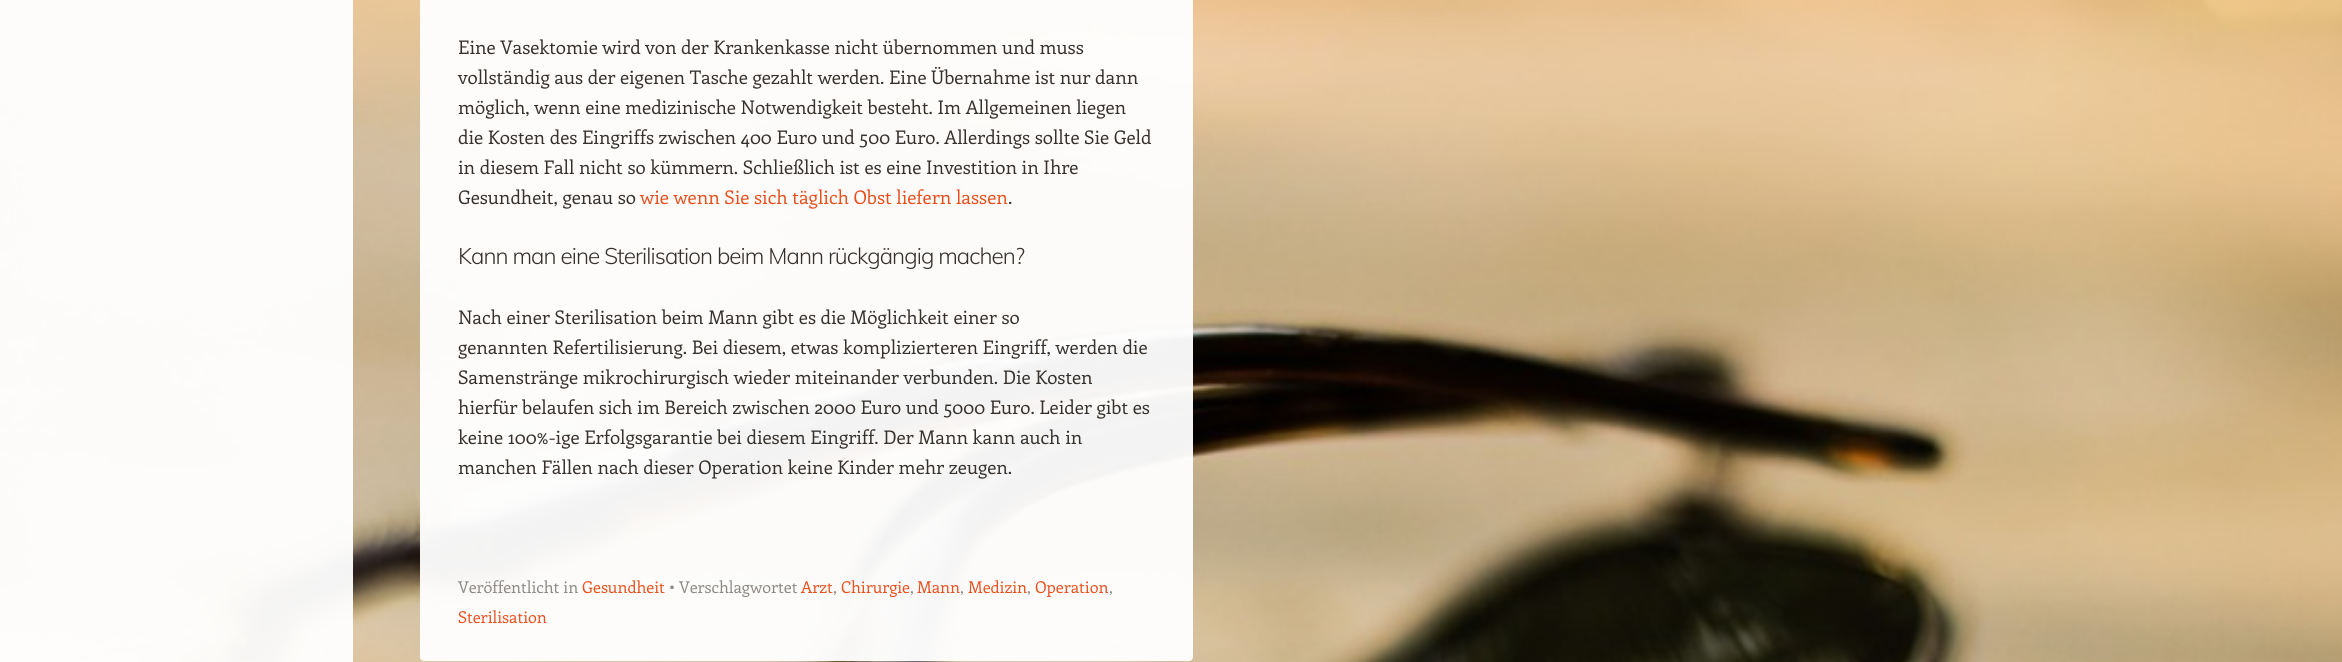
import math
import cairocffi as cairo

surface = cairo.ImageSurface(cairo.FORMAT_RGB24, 2342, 662)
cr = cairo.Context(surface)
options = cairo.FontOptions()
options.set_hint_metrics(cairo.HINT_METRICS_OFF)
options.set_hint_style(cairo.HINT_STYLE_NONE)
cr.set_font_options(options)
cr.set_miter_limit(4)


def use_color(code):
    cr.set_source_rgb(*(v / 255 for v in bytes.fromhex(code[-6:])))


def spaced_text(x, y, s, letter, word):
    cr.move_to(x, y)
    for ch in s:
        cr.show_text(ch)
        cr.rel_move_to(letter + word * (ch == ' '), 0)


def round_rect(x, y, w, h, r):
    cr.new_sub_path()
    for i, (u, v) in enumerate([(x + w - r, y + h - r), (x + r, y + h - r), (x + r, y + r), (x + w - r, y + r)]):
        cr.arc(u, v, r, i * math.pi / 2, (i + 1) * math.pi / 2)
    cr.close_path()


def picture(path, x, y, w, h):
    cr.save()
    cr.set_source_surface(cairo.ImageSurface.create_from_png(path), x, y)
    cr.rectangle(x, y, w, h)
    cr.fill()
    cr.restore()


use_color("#ffffff")
cr.paint()
picture("img1.png", 0, 0, 2342, 662)
cr.set_source_rgba(1, 1, 1, 0.95)
cr.rectangle(0, 0, 353, 662)
cr.fill()
round_rect(420, -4, 773, 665, 4)
cr.fill()
cr.select_font_face("Enriqueta")
cr.set_font_size(18.75)
use_color("#36312d")
cr.move_to(458, 54)
cr.show_text("Eine Vasektomie wird von der Krankenkasse nicht übernommen und muss")
cr.move_to(458, 84)
cr.show_text("vollständig aus der eigenen Tasche gezahlt werden. Eine Übernahme ist nur dann")
cr.move_to(458, 114)
cr.show_text("möglich, wenn eine medizinische Notwendigkeit besteht. Im Allgemeinen liegen")
cr.move_to(458, 144)
cr.show_text("die Kosten des Eingriffs zwischen 400 Euro und 500 Euro. Allerdings sollte Sie Geld")
cr.move_to(458, 174)
cr.show_text("in diesem Fall nicht so kümmern. Schließlich ist es eine Investition in Ihre")
cr.move_to(458, 204)
cr.show_text("Gesundheit, genau so")
use_color("#e94f1d")
cr.move_to(640, 204)
cr.show_text("wie wenn Sie sich täglich Obst liefern lassen")
use_color("#36312d")
cr.move_to(1008, 204)
cr.show_text(".")
cr.select_font_face("Muli Light")
cr.set_font_size(22.5)
spaced_text(458, 264, "Kann man eine Sterilisation beim Mann rückgängig machen?", -0.9, 0)
cr.select_font_face("Enriqueta")
cr.set_font_size(18.75)
cr.move_to(458, 324)
cr.show_text("Nach einer Sterilisation beim Mann gibt es die Möglichkeit einer so")
cr.move_to(458, 354)
cr.show_text("genannten Refertilisierung. Bei diesem, etwas komplizierteren Eingriff, werden die")
cr.move_to(458, 384)
cr.show_text("Samenstränge mikrochirurgisch wieder miteinander verbunden. Die Kosten")
cr.move_to(458, 414)
cr.show_text("hierfür belaufen sich im Bereich zwischen 2000 Euro und 5000 Euro. Leider gibt es")
cr.move_to(458, 444)
cr.show_text("keine 100%-ige Erfolgsgarantie bei diesem Eingriff. Der Mann kann auch in")
cr.move_to(458, 474)
cr.show_text("manchen Fällen nach dieser Operation keine Kinder mehr zeugen.")
cr.set_font_size(16.25)
use_color("#8c8885")
cr.move_to(458, 593)
cr.show_text("Veröffentlicht in")
use_color("#e94f1d")
cr.move_to(582, 593)
cr.show_text("Gesundheit")
use_color("#8c8885")
cr.move_to(669, 593)
cr.show_text("• Verschlagwortet")
use_color("#e94f1d")
cr.move_to(801, 593)
cr.show_text("Arzt")
use_color("#8c8885")
cr.move_to(833, 593)
cr.show_text(",")
use_color("#e94f1d")
cr.move_to(841, 593)
cr.show_text("Chirurgie")
use_color("#8c8885")
cr.move_to(910, 593)
cr.show_text(",")
use_color("#e94f1d")
cr.move_to(917, 593)
cr.show_text("Mann")
use_color("#8c8885")
cr.move_to(960, 593)
cr.show_text(",")
use_color("#e94f1d")
cr.move_to(968, 593)
cr.show_text("Medizin")
use_color("#8c8885")
cr.move_to(1027, 593)
cr.show_text(",")
use_color("#e94f1d")
cr.move_to(1035, 593)
cr.show_text("Operation")
use_color("#8c8885")
cr.move_to(1109, 593)
cr.show_text(",")
use_color("#e94f1d")
cr.move_to(458, 623)
cr.show_text("Sterilisation")
surface.write_to_png("result.png")
